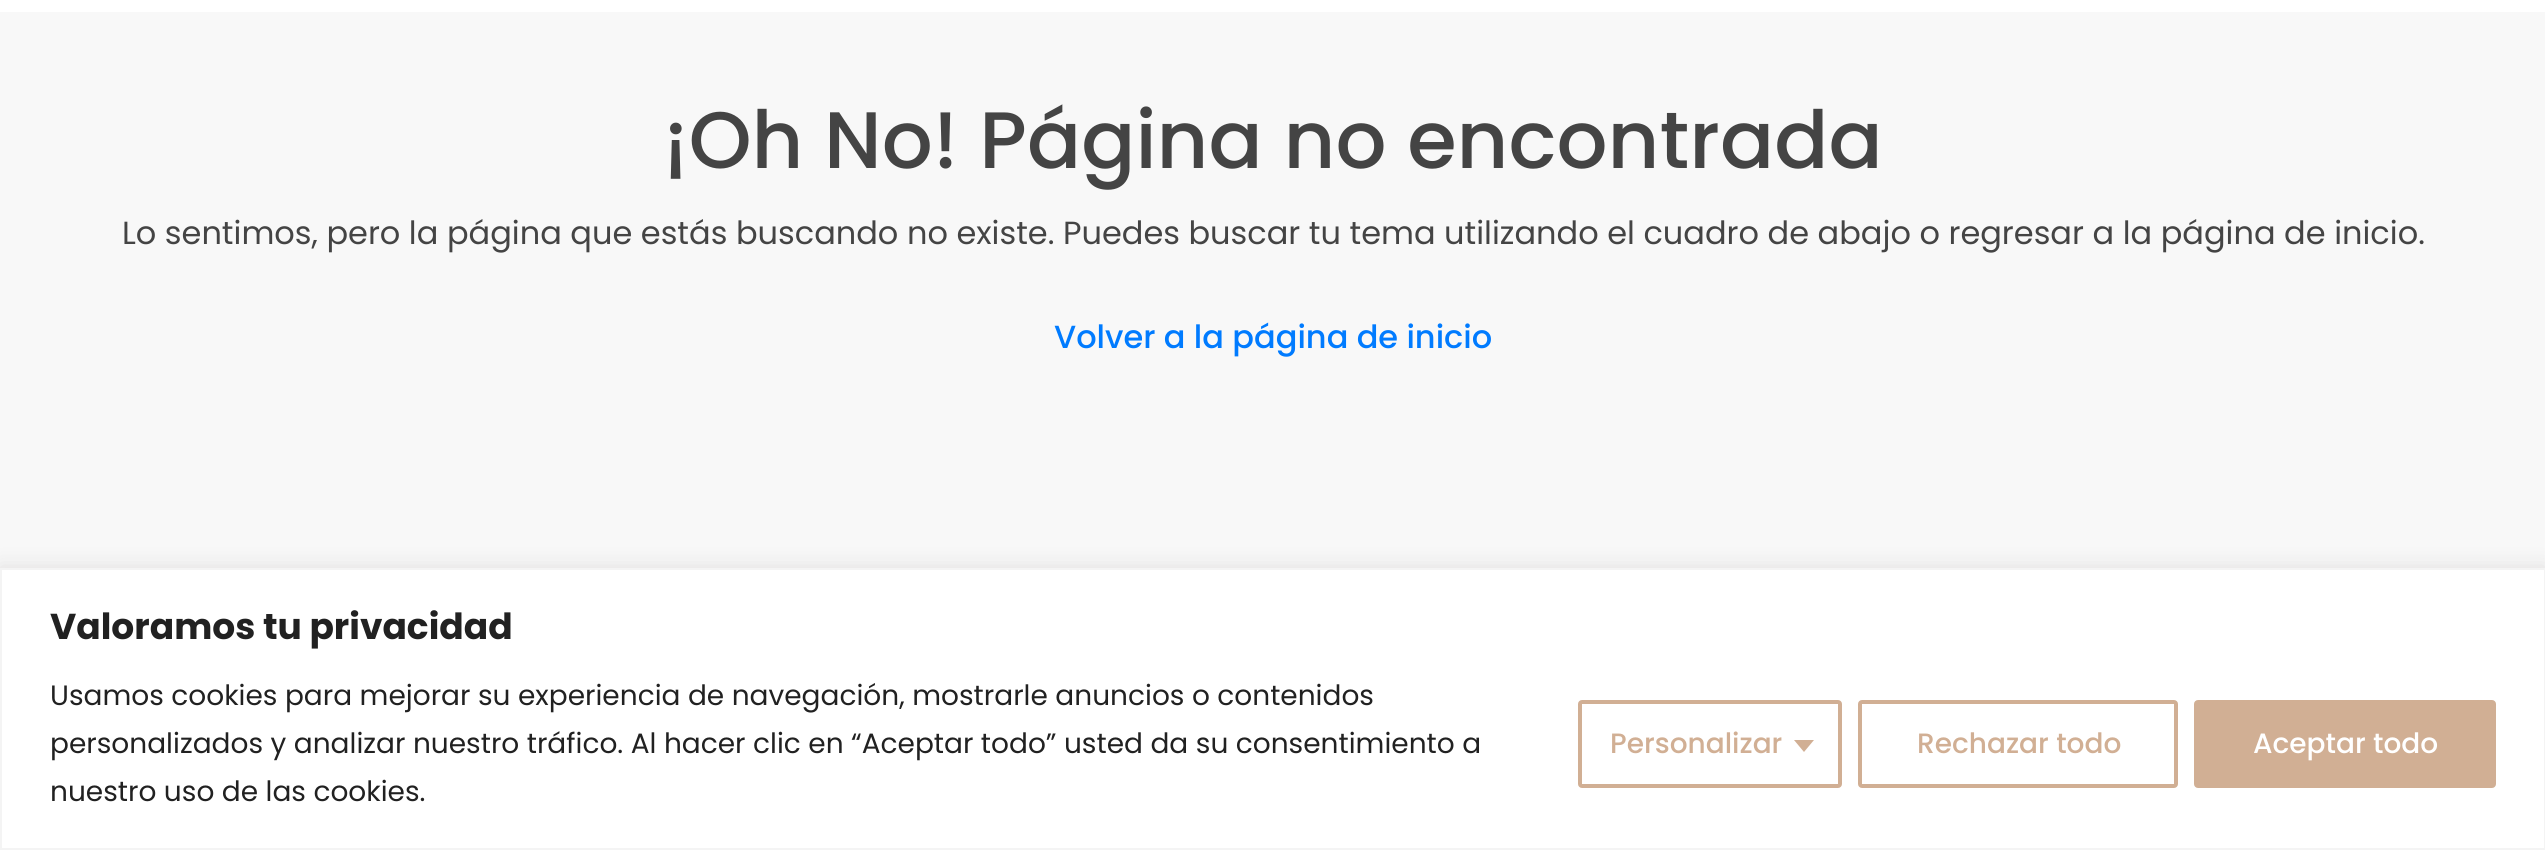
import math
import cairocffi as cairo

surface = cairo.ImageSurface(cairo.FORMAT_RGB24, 2545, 850)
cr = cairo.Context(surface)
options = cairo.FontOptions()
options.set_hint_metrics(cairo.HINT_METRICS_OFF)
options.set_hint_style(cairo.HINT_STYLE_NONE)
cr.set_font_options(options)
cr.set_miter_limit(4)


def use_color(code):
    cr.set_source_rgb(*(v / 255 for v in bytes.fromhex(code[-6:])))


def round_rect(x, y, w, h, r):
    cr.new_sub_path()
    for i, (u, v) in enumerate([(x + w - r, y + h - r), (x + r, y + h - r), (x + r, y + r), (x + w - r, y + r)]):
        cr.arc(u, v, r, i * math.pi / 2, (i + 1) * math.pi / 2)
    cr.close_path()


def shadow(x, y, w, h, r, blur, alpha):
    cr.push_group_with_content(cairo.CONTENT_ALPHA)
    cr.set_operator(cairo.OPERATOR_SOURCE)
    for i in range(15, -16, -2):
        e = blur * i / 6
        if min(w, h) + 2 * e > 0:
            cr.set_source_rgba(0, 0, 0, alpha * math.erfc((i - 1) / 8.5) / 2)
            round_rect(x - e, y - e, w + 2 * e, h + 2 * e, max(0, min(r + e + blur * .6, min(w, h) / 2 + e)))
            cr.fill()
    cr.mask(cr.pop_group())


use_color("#f8f8f8")
cr.paint()
use_color("#ffffff")
cr.rectangle(0, 0, 2545, 12)
cr.fill()
cr.select_font_face("Poppins Medium")
cr.set_font_size(80)
use_color("#444444")
cr.move_to(663, 168)
cr.show_text("¡Oh No! Página no encontrada")
cr.select_font_face("Poppins")
cr.set_font_size(32)
cr.move_to(122, 244)
cr.show_text("Lo sentimos, pero la página que estás buscando no existe. Puedes buscar tu tema utilizando el cuadro de abajo o regresar a la página de inicio.")
cr.select_font_face("Poppins Medium")
use_color("#007bff")
cr.move_to(1054, 348)
cr.show_text("Volver a la página de inicio")
use_color("#acabab")
shadow(0, 566, 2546, 282, 0, 10, 0.3)
use_color("#ffffff")
cr.rectangle(1, 569, 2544, 280)
cr.fill_preserve()
use_color("#f4f4f4")
cr.stroke()
cr.select_font_face("Poppins", cairo.FONT_SLANT_NORMAL, cairo.FONT_WEIGHT_BOLD)
cr.set_font_size(36)
use_color("#212121")
cr.move_to(50, 639)
cr.show_text("Valoramos tu privacidad")
cr.select_font_face("Poppins")
cr.set_font_size(28)
cr.move_to(50, 705)
cr.show_text("Usamos cookies para mejorar su experiencia de navegación, mostrarle anuncios o contenidos")
cr.move_to(50, 753)
cr.show_text("personalizados y analizar nuestro tráfico. Al hacer clic en “Aceptar todo” usted da su consentimiento a")
cr.move_to(50, 801)
cr.show_text("nuestro uso de las cookies.")
round_rect(1580, 702, 260, 84, 2)
use_color("#d1af94")
cr.set_line_width(4)
cr.stroke()
cr.select_font_face("Poppins Medium")
cr.move_to(1610, 753)
cr.show_text("Personalizar")
cr.new_path()
cr.move_to(1794, 740)
cr.line_to(1814, 740)
cr.line_to(1804, 752)
cr.close_path()
cr.fill()
round_rect(1860, 702, 316, 84, 2)
cr.stroke()
cr.move_to(1917, 753)
cr.show_text("Rechazar todo")
round_rect(2196, 702, 298, 84, 2)
cr.fill_preserve()
cr.stroke()
use_color("#ffffff")
cr.move_to(2253, 753)
cr.show_text("Aceptar todo")
surface.write_to_png("result.png")
